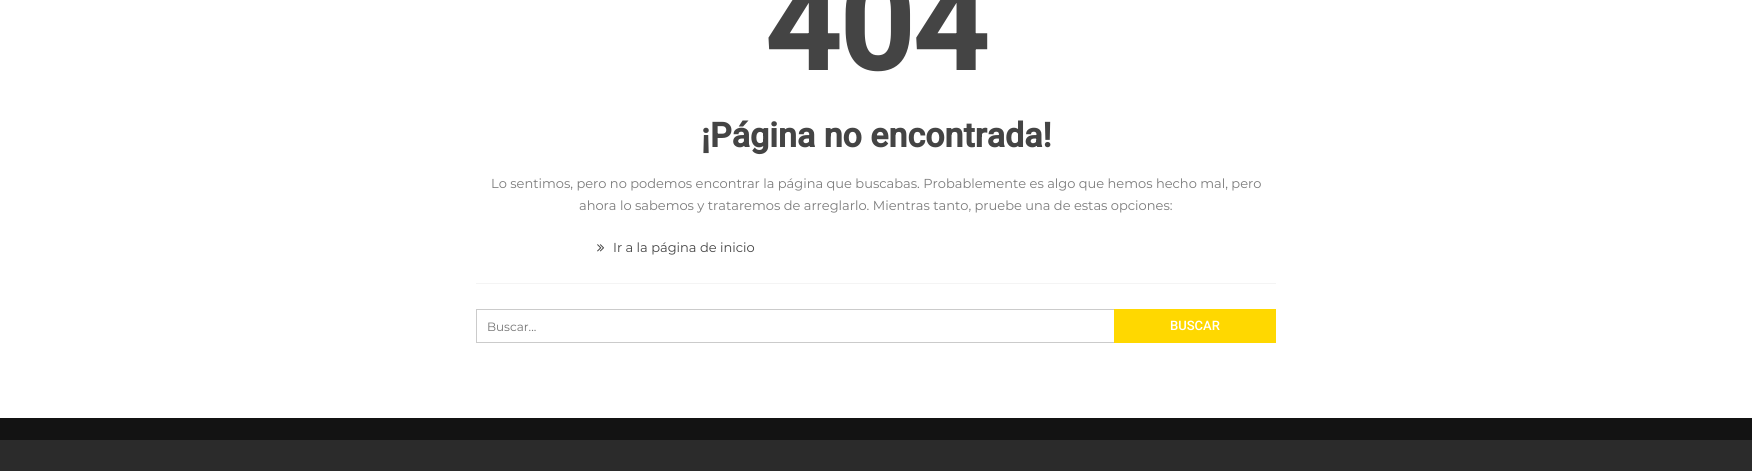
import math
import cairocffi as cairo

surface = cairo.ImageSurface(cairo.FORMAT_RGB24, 1752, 471)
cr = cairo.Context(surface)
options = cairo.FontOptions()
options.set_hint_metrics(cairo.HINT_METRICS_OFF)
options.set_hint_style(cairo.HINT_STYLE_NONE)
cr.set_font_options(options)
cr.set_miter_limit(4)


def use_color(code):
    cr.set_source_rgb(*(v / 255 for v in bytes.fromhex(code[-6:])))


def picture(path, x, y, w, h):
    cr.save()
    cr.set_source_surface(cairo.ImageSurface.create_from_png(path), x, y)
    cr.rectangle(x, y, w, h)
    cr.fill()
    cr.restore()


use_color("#ffffff")
cr.paint()
cr.select_font_face("Roboto", cairo.FONT_SLANT_NORMAL, cairo.FONT_WEIGHT_BOLD)
cr.set_font_size(130)
use_color("#444444")
cr.move_to(765, 70)
cr.show_text("404")
cr.set_font_size(34)
cr.move_to(701, 147)
cr.show_text("¡Página no encontrada!")
cr.select_font_face("Montserrat")
cr.set_font_size(13)
use_color("#7b7b7b")
cr.move_to(491, 188)
cr.show_text("Lo sentimos, pero no podemos encontrar la página que buscabas. Probablemente es algo que hemos hecho mal, pero")
cr.move_to(579, 210)
cr.show_text("ahora lo sabemos y trataremos de arreglarlo. Mientras tanto, pruebe una de estas opciones:")
picture("img1.png", 597, 244, 8, 8)
use_color("#444444")
cr.move_to(613, 252)
cr.show_text("Ir a la página de inicio")
use_color("#f4f4f4")
cr.rectangle(476, 283, 800, 1)
cr.fill()
cr.rectangle(476.5, 309.5, 799, 33)
use_color("#cbcbcb")
cr.set_line_width(1)
cr.stroke()
cr.set_font_size(12)
use_color("#757575")
cr.move_to(487, 331)
cr.show_text("Buscar...")
use_color("#ffd800")
cr.rectangle(1114, 309, 162, 34)
cr.fill()
cr.select_font_face("Roboto Medium")
cr.set_font_size(13)
use_color("#ffffff")
cr.move_to(1170, 330)
cr.show_text("BUSCAR")
use_color("#131313")
cr.rectangle(0, 418, 1752, 22)
cr.fill()
use_color("#2b2b2b")
cr.rectangle(0, 440, 1752, 31)
cr.fill()
surface.write_to_png("result.png")
